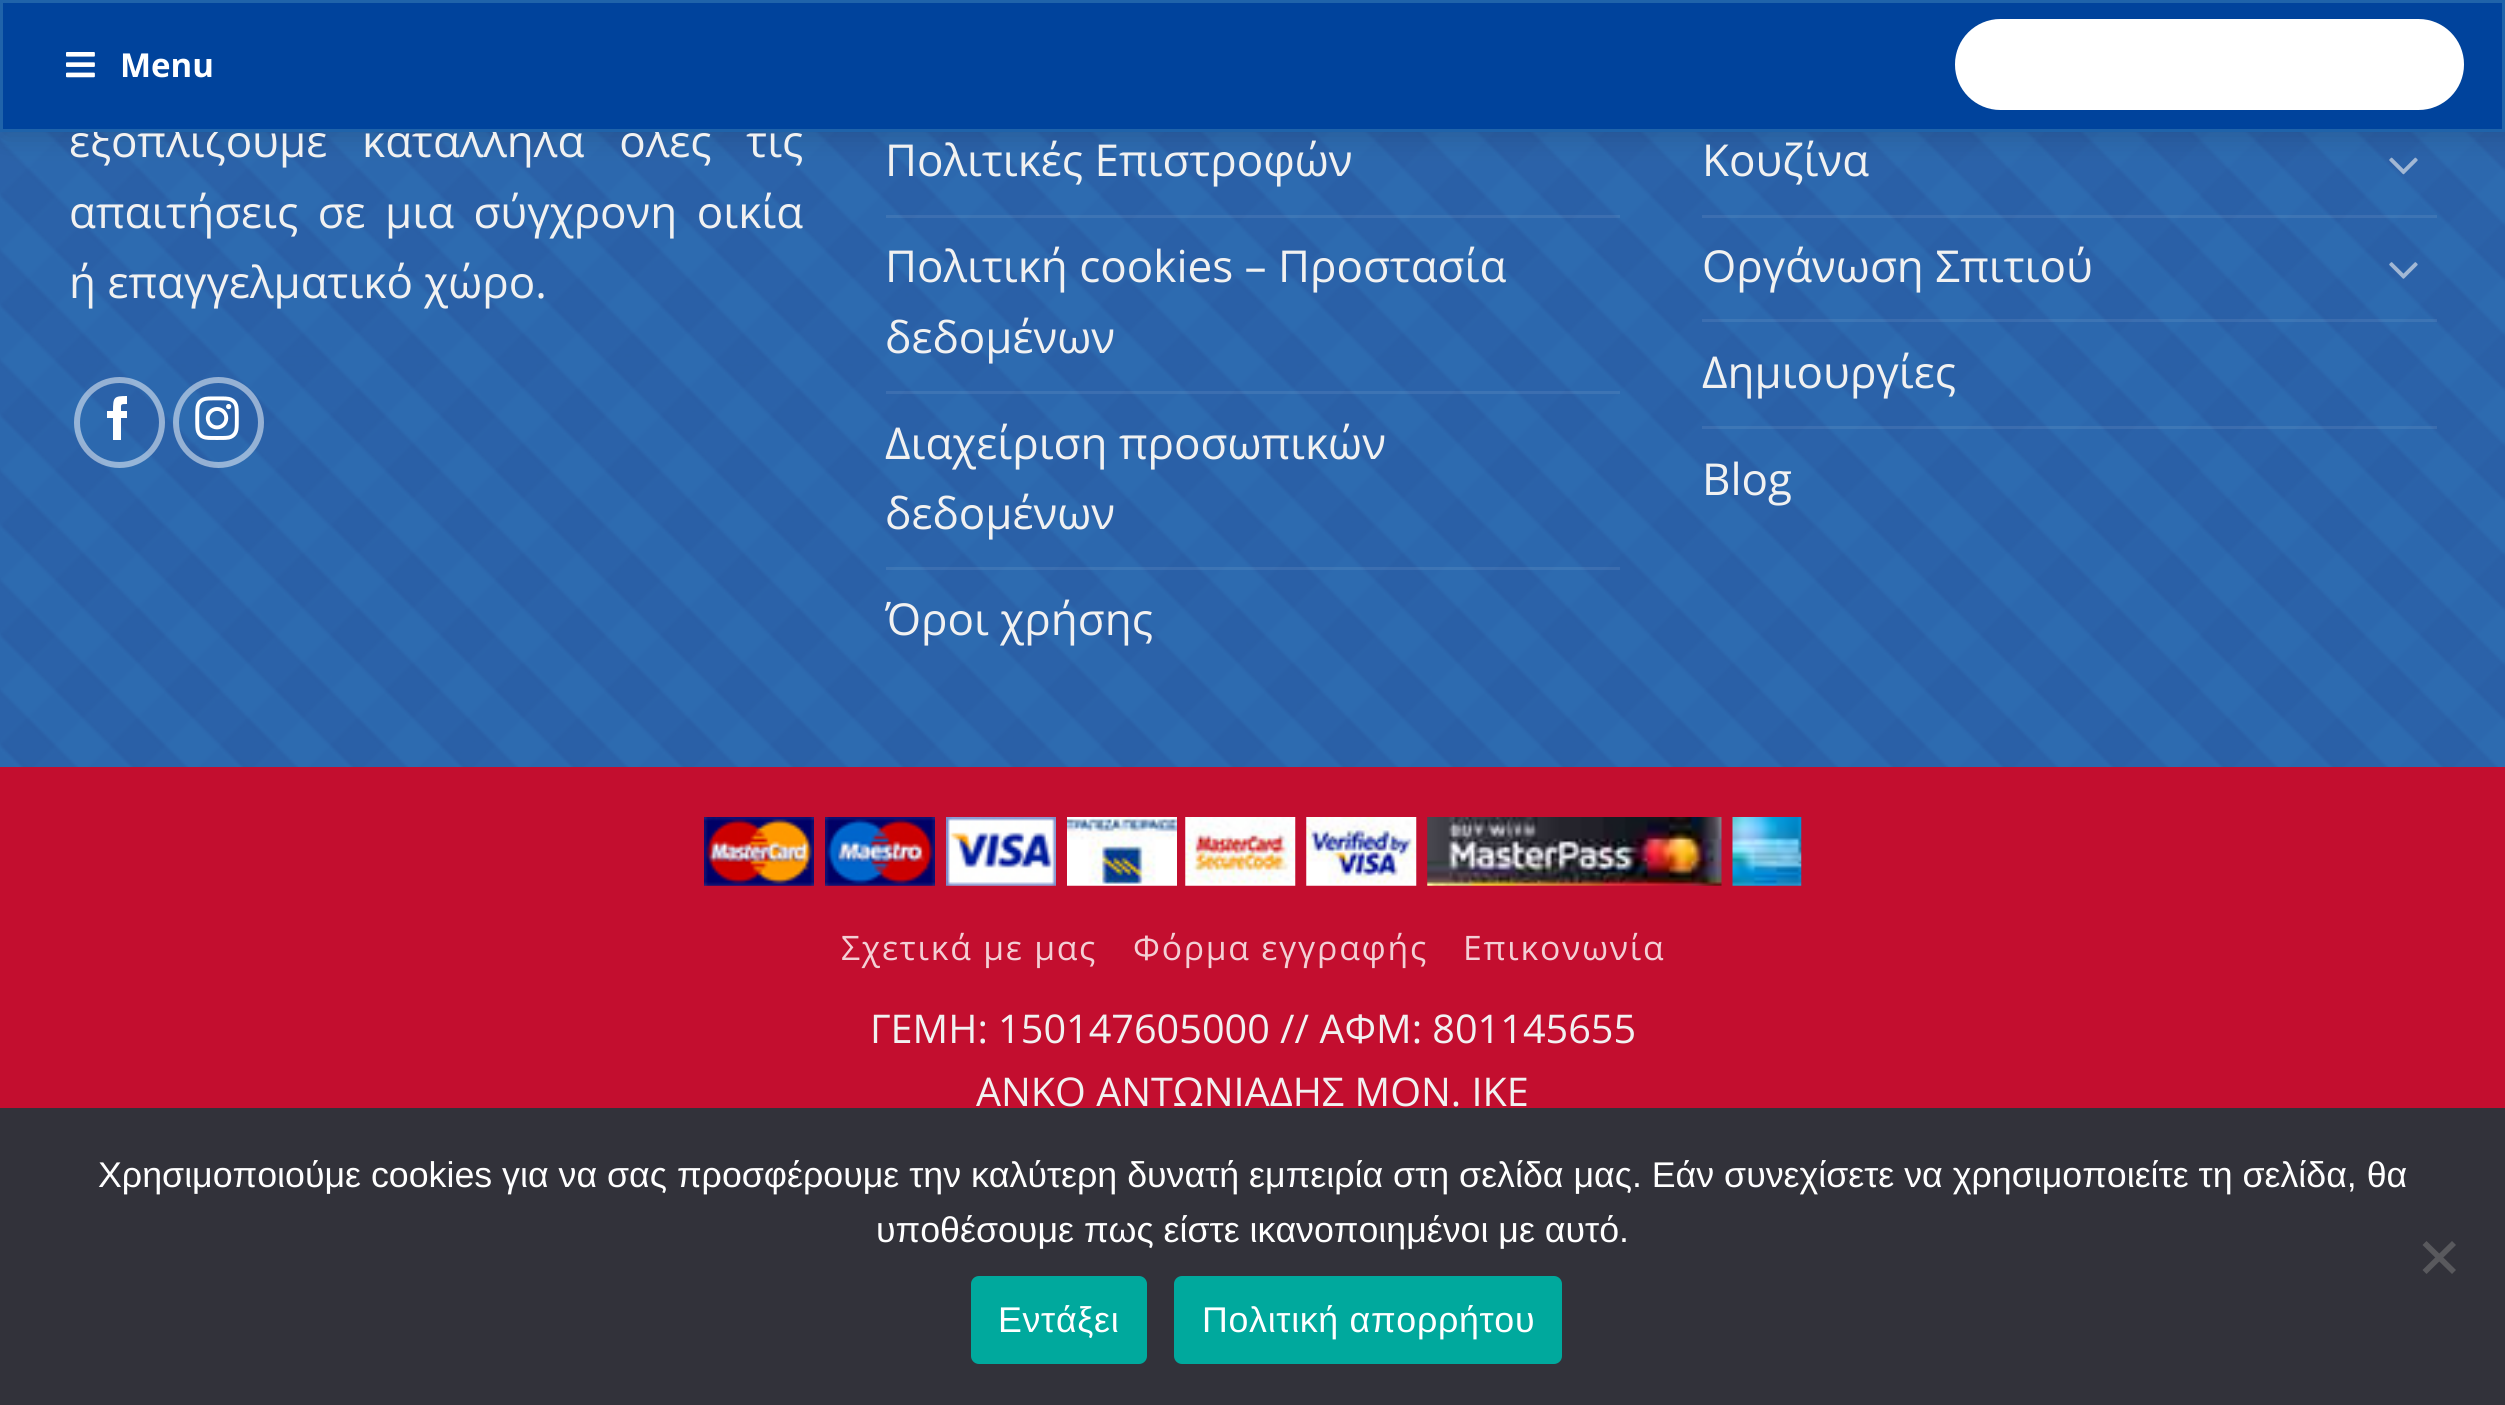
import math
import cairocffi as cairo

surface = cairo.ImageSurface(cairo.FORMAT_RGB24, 2505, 1405)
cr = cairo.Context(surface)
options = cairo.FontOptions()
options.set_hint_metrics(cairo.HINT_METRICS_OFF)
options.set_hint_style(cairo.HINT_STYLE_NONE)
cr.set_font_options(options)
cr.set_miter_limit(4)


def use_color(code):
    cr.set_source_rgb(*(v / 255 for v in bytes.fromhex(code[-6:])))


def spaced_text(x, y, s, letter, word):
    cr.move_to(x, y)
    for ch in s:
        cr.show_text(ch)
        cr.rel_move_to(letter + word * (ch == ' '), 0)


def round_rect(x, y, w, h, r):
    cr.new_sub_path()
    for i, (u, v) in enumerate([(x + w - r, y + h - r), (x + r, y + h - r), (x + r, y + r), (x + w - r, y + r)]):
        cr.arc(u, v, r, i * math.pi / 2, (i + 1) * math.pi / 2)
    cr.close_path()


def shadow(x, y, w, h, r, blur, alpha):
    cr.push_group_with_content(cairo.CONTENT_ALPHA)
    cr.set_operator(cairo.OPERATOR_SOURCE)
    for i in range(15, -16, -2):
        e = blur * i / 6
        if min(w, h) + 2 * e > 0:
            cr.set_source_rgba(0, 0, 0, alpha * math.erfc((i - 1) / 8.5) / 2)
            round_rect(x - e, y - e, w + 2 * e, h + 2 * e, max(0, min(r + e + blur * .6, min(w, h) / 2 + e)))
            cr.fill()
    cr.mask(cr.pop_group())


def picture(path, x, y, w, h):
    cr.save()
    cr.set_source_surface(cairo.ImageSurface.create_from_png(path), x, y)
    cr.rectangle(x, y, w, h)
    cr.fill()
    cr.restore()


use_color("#ffffff")
cr.paint()
picture("img2.png", 0, 132, 2505, 635)
picture("img4.png", 2389, 157, 29, 18)
use_color("#000000")
shadow(3, 3, 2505, 132, 0, 14, 0.15)
cr.select_font_face("Open Sans")
cr.set_font_size(44)
use_color("#f1f1f1")
spaced_text(69, 157, "εξοπλίζουμε κατάλληλα όλες τις", 0, 23.5)
use_color("#00439c")
cr.rectangle(1.5, 1.5, 2502, 129)
cr.fill_preserve()
use_color("#1f63aa")
cr.set_line_width(3)
cr.stroke()
picture("img1.png", 66, 52, 29, 26)
cr.select_font_face("Open Sans", cairo.FONT_SLANT_NORMAL, cairo.FONT_WEIGHT_BOLD)
cr.set_font_size(33)
use_color("#ffffff")
cr.move_to(120, 77)
cr.show_text("Menu")
round_rect(1955, 19, 509, 91, 45.5)
cr.fill()
round_rect(1956.5, 20.5, 506, 88, 44)
cr.set_source_rgba(1, 1, 1, 0.09)
cr.stroke()
cr.select_font_face("Open Sans")
cr.set_font_size(44)
use_color("#f1f1f1")
spaced_text(69, 228, "απαιτήσεις σε μια σύγχρονη οικία", 0, 8)
cr.move_to(69, 298)
cr.show_text("ή επαγγελματικό χώρο.")
cr.new_path()
cr.arc(119.5, 422.5, 42.5, 0, 2 * math.pi)
cr.set_source_rgba(1, 1, 1, 0.5)
cr.set_line_width(6)
cr.stroke()
use_color("#ffffff")
cr.new_path()
cr.move_to(121, 440)
cr.line_to(113, 440)
cr.line_to(113, 418)
cr.line_to(107, 418)
cr.line_to(107, 411)
cr.line_to(113, 411)
cr.curve_to(113, 397, 114, 396, 127, 396)
cr.line_to(127, 404)
cr.curve_to(120, 404, 121, 404, 121, 411)
cr.line_to(127, 411)
cr.line_to(127, 418)
cr.line_to(121, 418)
cr.close_path()
cr.fill()
cr.arc(218.5, 422.5, 42.5, 0, 2 * math.pi)
cr.set_source_rgba(1, 1, 1, 0.5)
cr.stroke()
picture("img3.png", 195, 396, 44, 44)
use_color("#f1f1f1")
cr.move_to(885, 176)
cr.show_text("Πολιτικές Επιστροφών")
cr.set_source_rgba(1, 1, 1, 0.08)
cr.rectangle(886, 215, 734, 3)
cr.fill()
use_color("#f1f1f1")
cr.move_to(885, 282)
cr.show_text("Πολιτική cookies – Προστασία")
cr.move_to(885, 353)
cr.show_text("δεδομένων")
cr.set_source_rgba(1, 1, 1, 0.08)
cr.rectangle(886, 391, 734, 3)
cr.fill()
use_color("#f1f1f1")
cr.move_to(885, 459)
cr.show_text("Διαχείριση προσωπικών")
cr.move_to(885, 529)
cr.show_text("δεδομένων")
cr.set_source_rgba(1, 1, 1, 0.08)
cr.rectangle(886, 567, 734, 3)
cr.fill()
use_color("#f1f1f1")
cr.move_to(885, 635)
cr.show_text("Όροι χρήσης")
cr.move_to(1702, 176)
cr.show_text("Κουζίνα")
cr.set_source_rgba(1, 1, 1, 0.08)
cr.rectangle(1702, 215, 735, 3)
cr.fill()
use_color("#f1f1f1")
cr.move_to(1702, 282)
cr.show_text("Οργάνωση Σπιτιού")
picture("img5.png", 2389, 262, 29, 17)
cr.set_source_rgba(1, 1, 1, 0.08)
cr.rectangle(1702, 319, 735, 3)
cr.fill()
use_color("#f1f1f1")
cr.move_to(1702, 388)
cr.show_text("Δημιουργίες")
cr.set_source_rgba(1, 1, 1, 0.08)
cr.rectangle(1702, 426, 735, 3)
cr.fill()
use_color("#f1f1f1")
cr.move_to(1702, 495)
cr.show_text("Blog")
use_color("#c30e2f")
cr.rectangle(0, 767, 2505, 341)
cr.fill()
picture("img6.png", 704, 817, 110, 69)
picture("img7.png", 825, 817, 110, 69)
picture("img8.png", 946, 817, 110, 69)
picture("img9.png", 1067, 817, 110, 69)
picture("img10.png", 1185, 817, 111, 69)
picture("img11.png", 1306, 817, 111, 69)
picture("img12.png", 1427, 817, 295, 69)
picture("img13.png", 1732, 817, 70, 69)
cr.set_font_size(33.75)
use_color("#f3cfd5")
spaced_text(841, 960, "Σχετικά με μας", 1.75, 0)
spaced_text(1133, 960, "Φόρμα εγγραφής", 1.75, 0)
spaced_text(1463, 960, "Επικονωνία", 1.75, 0)
cr.set_font_size(39.6)
use_color("#f1f1f1")
cr.move_to(870, 1043)
cr.show_text("ΓΕΜΗ: 150147605000 // ΑΦΜ: 801145655")
cr.move_to(976, 1106)
cr.show_text("ΑΝΚΟ ΑΝΤΩΝΙΑΔΗΣ ΜΟΝ. ΙΚΕ")
use_color("#32323a")
cr.rectangle(0, 1108, 2505, 297)
cr.fill()
cr.select_font_face("Liberation Sans")
cr.set_font_size(35.75)
use_color("#ffffff")
cr.move_to(98, 1187)
cr.show_text("Χρησιμοποιούμε cookies για να σας προσφέρουμε την καλύτερη δυνατή εμπειρία στη σελίδα μας. Εάν συνεχίσετε να χρησιμοποιείτε τη σελίδα, θα")
cr.move_to(876, 1242)
cr.show_text("υποθέσουμε πως είστε ικανοποιημένοι με αυτό.")
use_color("#59595d")
cr.new_path()
cr.move_to(2452, 1241)
cr.line_to(2456, 1245)
cr.line_to(2426.5, 1274)
cr.line_to(2422.5, 1270)
cr.close_path()
cr.fill()
cr.new_path()
cr.move_to(2422.5, 1245)
cr.line_to(2426.5, 1241)
cr.line_to(2456, 1270)
cr.line_to(2452, 1274)
cr.close_path()
cr.fill()
use_color("#00a99d")
round_rect(971, 1276, 176, 88, 8)
cr.fill()
use_color("#ffffff")
spaced_text(998, 1332, "Εντάξει", 0.7, 0)
use_color("#00a99d")
round_rect(1174, 1276, 388, 88, 8)
cr.fill()
use_color("#ffffff")
spaced_text(1202, 1332, "Πολιτική απορρήτου", 0.7, 0)
surface.write_to_png("result.png")
